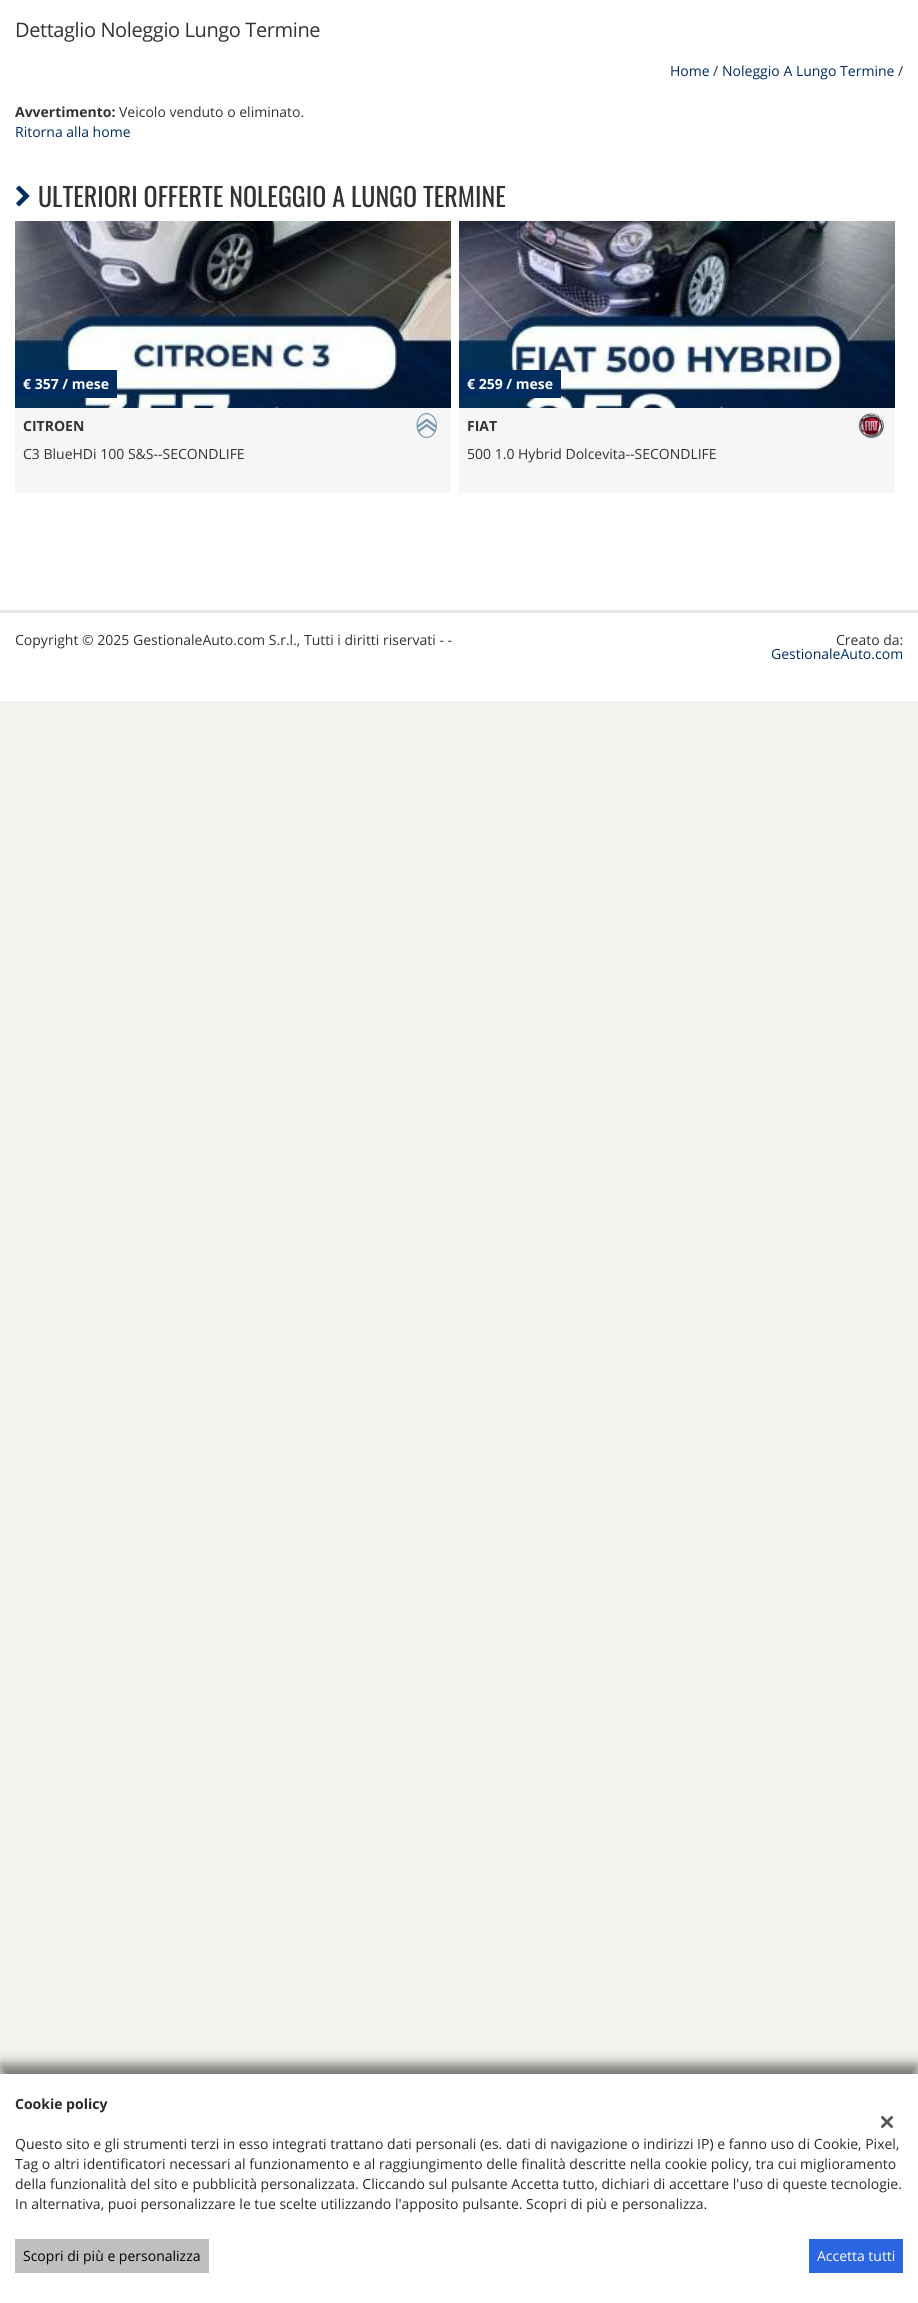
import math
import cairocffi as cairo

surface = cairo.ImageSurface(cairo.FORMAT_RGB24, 918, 2303)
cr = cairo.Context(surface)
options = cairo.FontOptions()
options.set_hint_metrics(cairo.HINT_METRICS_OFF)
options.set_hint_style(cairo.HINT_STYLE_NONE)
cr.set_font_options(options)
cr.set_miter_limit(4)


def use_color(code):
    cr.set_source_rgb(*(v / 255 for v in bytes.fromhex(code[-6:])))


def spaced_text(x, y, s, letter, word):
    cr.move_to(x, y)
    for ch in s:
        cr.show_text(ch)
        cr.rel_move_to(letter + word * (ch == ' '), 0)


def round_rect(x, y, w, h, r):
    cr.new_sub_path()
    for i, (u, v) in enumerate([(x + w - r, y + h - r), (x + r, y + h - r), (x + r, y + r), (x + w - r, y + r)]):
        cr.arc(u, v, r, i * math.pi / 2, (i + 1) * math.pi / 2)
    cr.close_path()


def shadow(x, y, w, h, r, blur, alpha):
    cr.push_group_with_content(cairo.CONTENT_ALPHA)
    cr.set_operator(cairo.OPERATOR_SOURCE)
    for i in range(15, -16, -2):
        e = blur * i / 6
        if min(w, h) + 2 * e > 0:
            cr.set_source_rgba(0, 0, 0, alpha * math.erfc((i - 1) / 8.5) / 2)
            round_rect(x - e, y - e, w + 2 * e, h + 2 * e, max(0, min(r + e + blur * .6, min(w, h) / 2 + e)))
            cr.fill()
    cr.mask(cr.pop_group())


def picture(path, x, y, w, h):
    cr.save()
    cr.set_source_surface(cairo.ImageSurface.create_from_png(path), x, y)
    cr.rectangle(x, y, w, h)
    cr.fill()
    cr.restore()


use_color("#f3f2ee")
cr.paint()
use_color("#ffffff")
cr.rectangle(0, 0, 918, 610)
cr.fill()
cr.select_font_face("Open Sans")
cr.set_font_size(20)
use_color("#333333")
spaced_text(15, 37, "Dettaglio Noleggio Lungo Termine", -0.4, 0)
cr.set_font_size(14)
use_color("#002c5f")
cr.move_to(670, 76)
cr.show_text("Home")
use_color("#333333")
cr.move_to(713, 76)
cr.show_text("/")
use_color("#002c5f")
cr.move_to(722, 76)
cr.show_text("Noleggio A Lungo Termine")
use_color("#333333")
cr.move_to(898, 76)
cr.show_text("/")
cr.select_font_face("Open Sans", cairo.FONT_SLANT_NORMAL, cairo.FONT_WEIGHT_BOLD)
cr.move_to(15, 117)
cr.show_text("Avvertimento:")
cr.select_font_face("Open Sans")
cr.move_to(119, 117)
cr.show_text("Veicolo venduto o eliminato.")
use_color("#002c5f")
cr.move_to(15, 137)
cr.show_text("Ritorna alla home")
picture("img1.png", 16, 185, 14, 22)
cr.select_font_face("Oswald")
cr.set_font_size(26)
use_color("#333333")
cr.move_to(38, 207)
cr.show_text("ULTERIORI OFFERTE NOLEGGIO A LUNGO TERMINE")
use_color("#f6f6f6")
cr.rectangle(15, 408, 436, 85)
cr.fill()
picture("img2.png", 15, 221, 436, 187)
use_color("#002c5f")
cr.rectangle(15, 370, 102, 28)
cr.fill()
cr.select_font_face("Open Sans", cairo.FONT_SLANT_NORMAL, cairo.FONT_WEIGHT_BOLD)
cr.set_font_size(14)
use_color("#ffffff")
cr.move_to(23, 389)
cr.show_text("€ 357 / mese")
use_color("#333333")
cr.move_to(23, 431)
cr.show_text("CITROEN")
picture("img3.png", 416, 413, 21, 25)
cr.select_font_face("Open Sans")
cr.move_to(23, 459)
cr.show_text("C3 BlueHDi 100 S&S--SECONDLIFE")
use_color("#f6f6f6")
cr.rectangle(459, 408, 436, 85)
cr.fill()
picture("img4.png", 459, 221, 436, 187)
use_color("#002c5f")
cr.rectangle(459, 370, 102, 28)
cr.fill()
cr.select_font_face("Open Sans", cairo.FONT_SLANT_NORMAL, cairo.FONT_WEIGHT_BOLD)
use_color("#ffffff")
cr.move_to(467, 389)
cr.show_text("€ 259 / mese")
use_color("#333333")
cr.move_to(467, 431)
cr.show_text("FIAT")
picture("img5.png", 858, 413, 26, 25)
cr.select_font_face("Open Sans")
cr.move_to(467, 459)
cr.show_text("500 1.0 Hybrid Dolcevita--SECONDLIFE")
use_color("#ffffff")
cr.rectangle(0, 613, 918, 88)
cr.fill()
use_color("#e6e6e6")
cr.rectangle(0, 610, 918, 3)
cr.fill()
use_color("#333333")
cr.move_to(15, 645)
cr.show_text("Copyright © 2025 GestionaleAuto.com S.r.l., Tutti i diritti riservati - -")
cr.move_to(836, 645)
cr.show_text("Creato da:")
use_color("#002c5f")
cr.move_to(771, 659)
cr.show_text("GestionaleAuto.com")
use_color("#000000")
shadow(0, 2064, 918, 229, 0, 6, 0.5)
use_color("#ffffff")
cr.rectangle(0, 2074, 918, 229)
cr.fill()
cr.select_font_face("Open Sans", cairo.FONT_SLANT_NORMAL, cairo.FONT_WEIGHT_BOLD)
use_color("#2b2929")
cr.move_to(15, 2109)
cr.show_text("Cookie policy")
cr.select_font_face("Open Sans")
cr.move_to(15, 2149)
cr.show_text("Questo sito e gli strumenti terzi in esso integrati trattano dati personali (es. dati di navigazione o indirizzi IP) e fanno uso di Cookie, Pixel,")
cr.move_to(15, 2169)
cr.show_text("Tag o altri identificatori necessari al funzionamento e al raggiungimento delle finalità descritte nella cookie policy, tra cui miglioramento")
cr.move_to(15, 2189)
cr.show_text("della funzionalità del sito e pubblicità personalizzata. Cliccando sul pulsante Accetta tutto, dichiari di accettare l'uso di queste tecnologie.")
cr.move_to(15, 2209)
cr.show_text("In alternativa, puoi personalizzare le tue scelte utilizzando l'apposito pulsante. Scopri di più e personalizza.")
use_color("#bfbfbf")
cr.rectangle(15, 2239, 194, 34)
cr.fill()
use_color("#000000")
cr.move_to(23, 2261)
cr.show_text("Scopri di più e personalizza")
use_color("#2c65e1")
cr.rectangle(809, 2239, 94, 34)
cr.fill()
use_color("#ffffff")
cr.move_to(817, 2261)
cr.show_text("Accetta tutti")
picture("img6.png", 881, 2116, 12, 12)
surface.write_to_png("result.png")
